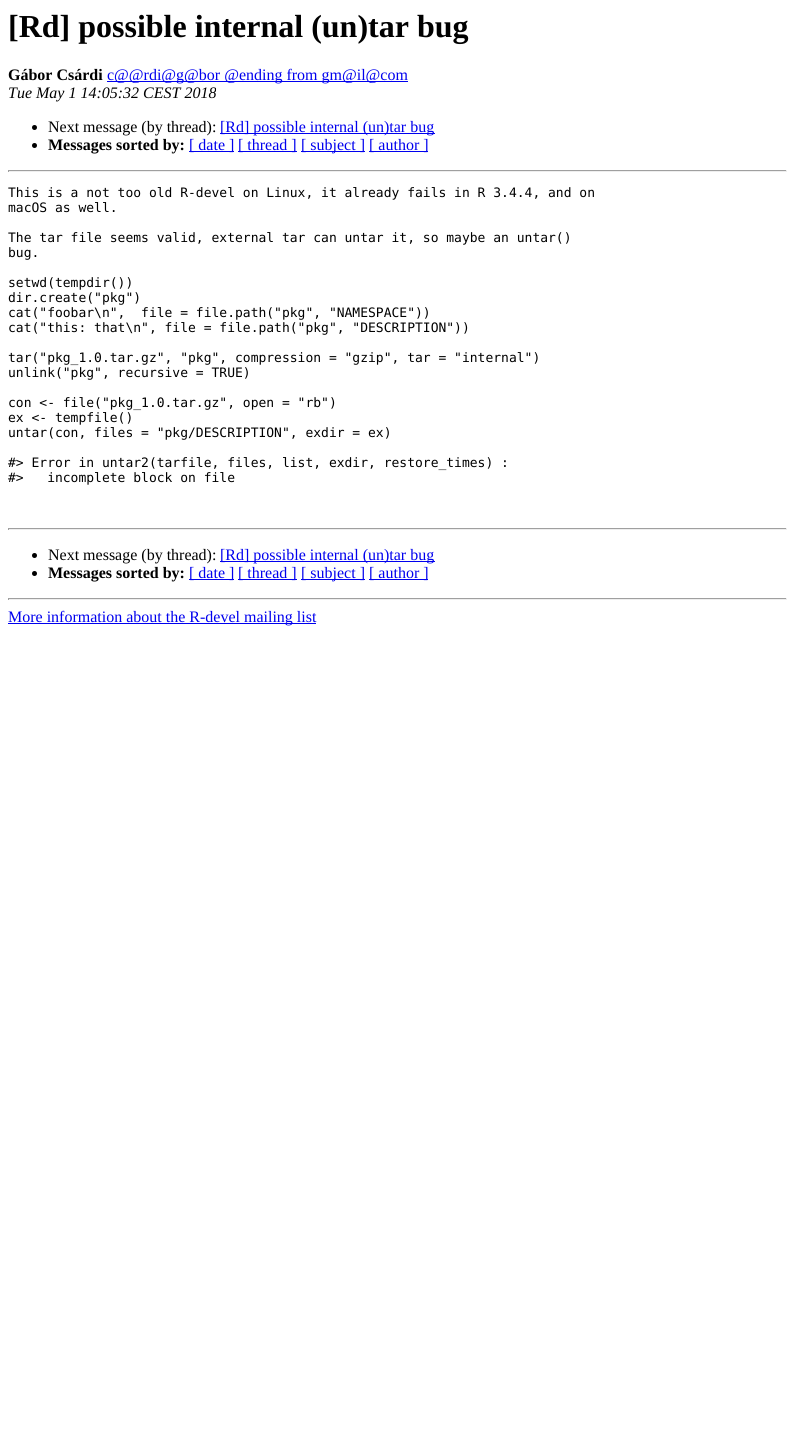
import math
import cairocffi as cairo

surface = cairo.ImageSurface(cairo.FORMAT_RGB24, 795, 1451)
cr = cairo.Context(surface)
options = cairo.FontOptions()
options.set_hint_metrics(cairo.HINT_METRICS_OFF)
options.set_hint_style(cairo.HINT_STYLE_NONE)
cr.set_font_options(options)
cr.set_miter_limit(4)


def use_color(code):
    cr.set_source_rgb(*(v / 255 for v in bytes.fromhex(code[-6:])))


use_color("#ffffff")
cr.paint()
cr.select_font_face("Liberation Serif", cairo.FONT_SLANT_NORMAL, cairo.FONT_WEIGHT_BOLD)
cr.set_font_size(32)
use_color("#000000")
cr.move_to(8, 37)
cr.show_text("[Rd] possible internal (un)tar bug")
cr.set_font_size(16)
cr.move_to(8, 80)
cr.show_text("Gábor Csárdi")
use_color("#0000ee")
cr.rectangle(107, 81, 301, 1)
cr.fill()
cr.select_font_face("Liberation Serif")
cr.move_to(107, 80)
cr.show_text("c@@rdi@g@bor @ending from gm@il@com")
cr.select_font_face("Liberation Serif", cairo.FONT_SLANT_ITALIC)
use_color("#000000")
cr.move_to(8, 98)
cr.show_text("Tue May 1 14:05:32 CEST 2018")
cr.new_path()
cr.arc(34.5, 127.5, 2.5, 0, 2 * math.pi)
cr.fill()
cr.select_font_face("Liberation Serif")
cr.move_to(48, 132)
cr.show_text("Next message (by thread):")
use_color("#0000ee")
cr.rectangle(220, 133, 215, 1)
cr.fill()
cr.move_to(220, 132)
cr.show_text("[Rd] possible internal (un)tar bug")
use_color("#000000")
cr.new_path()
cr.arc(34.5, 145.5, 2.5, 0, 2 * math.pi)
cr.fill()
cr.select_font_face("Liberation Serif", cairo.FONT_SLANT_NORMAL, cairo.FONT_WEIGHT_BOLD)
cr.move_to(48, 150)
cr.show_text("Messages sorted by:")
use_color("#0000ee")
cr.rectangle(189, 151, 45, 1)
cr.fill()
cr.select_font_face("Liberation Serif")
cr.move_to(189, 150)
cr.show_text("[ date ]")
cr.rectangle(238, 151, 59, 1)
cr.fill()
cr.move_to(238, 150)
cr.show_text("[ thread ]")
cr.rectangle(301, 151, 64, 1)
cr.fill()
cr.move_to(301, 150)
cr.show_text("[ subject ]")
cr.rectangle(369, 151, 59, 1)
cr.fill()
cr.move_to(369, 150)
cr.show_text("[ author ]")
use_color("#9f9f9f")
cr.rectangle(8, 170, 779, 1)
cr.fill()
use_color("#eeeeee")
cr.rectangle(786, 170, 1, 2)
cr.fill()
cr.rectangle(8, 171, 779, 1)
cr.fill()
use_color("#9f9f9f")
cr.rectangle(8, 170, 1, 2)
cr.fill()
cr.select_font_face("DejaVu Sans Mono")
cr.set_font_size(13)
use_color("#000000")
cr.move_to(8, 197)
cr.show_text("This is a not too old R-devel on Linux, it already fails in R 3.4.4, and on")
cr.move_to(8, 212)
cr.show_text("macOS as well.")
cr.move_to(8, 242)
cr.show_text("The tar file seems valid, external tar can untar it, so maybe an untar()")
cr.move_to(8, 257)
cr.show_text("bug.")
cr.move_to(8, 287)
cr.show_text("setwd(tempdir())")
cr.move_to(8, 302)
cr.show_text("dir.create(\"pkg\")")
cr.move_to(8, 317)
cr.show_text("cat(\"foobar\\n\",  file = file.path(\"pkg\", \"NAMESPACE\"))")
cr.move_to(8, 332)
cr.show_text("cat(\"this: that\\n\", file = file.path(\"pkg\", \"DESCRIPTION\"))")
cr.move_to(8, 362)
cr.show_text("tar(\"pkg_1.0.tar.gz\", \"pkg\", compression = \"gzip\", tar = \"internal\")")
cr.move_to(8, 377)
cr.show_text("unlink(\"pkg\", recursive = TRUE)")
cr.move_to(8, 407)
cr.show_text("con <- file(\"pkg_1.0.tar.gz\", open = \"rb\")")
cr.move_to(8, 422)
cr.show_text("ex <- tempfile()")
cr.move_to(8, 437)
cr.show_text("untar(con, files = \"pkg/DESCRIPTION\", exdir = ex)")
cr.move_to(8, 467)
cr.show_text("#> Error in untar2(tarfile, files, list, exdir, restore_times) :")
cr.move_to(8, 482)
cr.show_text("#>   incomplete block on file")
use_color("#9f9f9f")
cr.rectangle(8, 528, 779, 1)
cr.fill()
use_color("#eeeeee")
cr.rectangle(786, 528, 1, 2)
cr.fill()
cr.rectangle(8, 529, 779, 1)
cr.fill()
use_color("#9f9f9f")
cr.rectangle(8, 528, 1, 2)
cr.fill()
use_color("#000000")
cr.arc(34.5, 555.5, 2.5, 0, 2 * math.pi)
cr.fill()
cr.select_font_face("Liberation Serif")
cr.set_font_size(16)
cr.move_to(48, 560)
cr.show_text("Next message (by thread):")
use_color("#0000ee")
cr.rectangle(220, 561, 215, 1)
cr.fill()
cr.move_to(220, 560)
cr.show_text("[Rd] possible internal (un)tar bug")
use_color("#000000")
cr.new_path()
cr.arc(34.5, 573.5, 2.5, 0, 2 * math.pi)
cr.fill()
cr.select_font_face("Liberation Serif", cairo.FONT_SLANT_NORMAL, cairo.FONT_WEIGHT_BOLD)
cr.move_to(48, 578)
cr.show_text("Messages sorted by:")
use_color("#0000ee")
cr.rectangle(189, 579, 45, 1)
cr.fill()
cr.select_font_face("Liberation Serif")
cr.move_to(189, 578)
cr.show_text("[ date ]")
cr.rectangle(238, 579, 59, 1)
cr.fill()
cr.move_to(238, 578)
cr.show_text("[ thread ]")
cr.rectangle(301, 579, 64, 1)
cr.fill()
cr.move_to(301, 578)
cr.show_text("[ subject ]")
cr.rectangle(369, 579, 59, 1)
cr.fill()
cr.move_to(369, 578)
cr.show_text("[ author ]")
use_color("#9f9f9f")
cr.rectangle(8, 598, 779, 1)
cr.fill()
use_color("#eeeeee")
cr.rectangle(786, 598, 1, 2)
cr.fill()
cr.rectangle(8, 599, 779, 1)
cr.fill()
use_color("#9f9f9f")
cr.rectangle(8, 598, 1, 2)
cr.fill()
use_color("#0000ee")
cr.rectangle(8, 623, 308, 1)
cr.fill()
cr.move_to(8, 622)
cr.show_text("More information about the R-devel mailing list")
surface.write_to_png("result.png")
